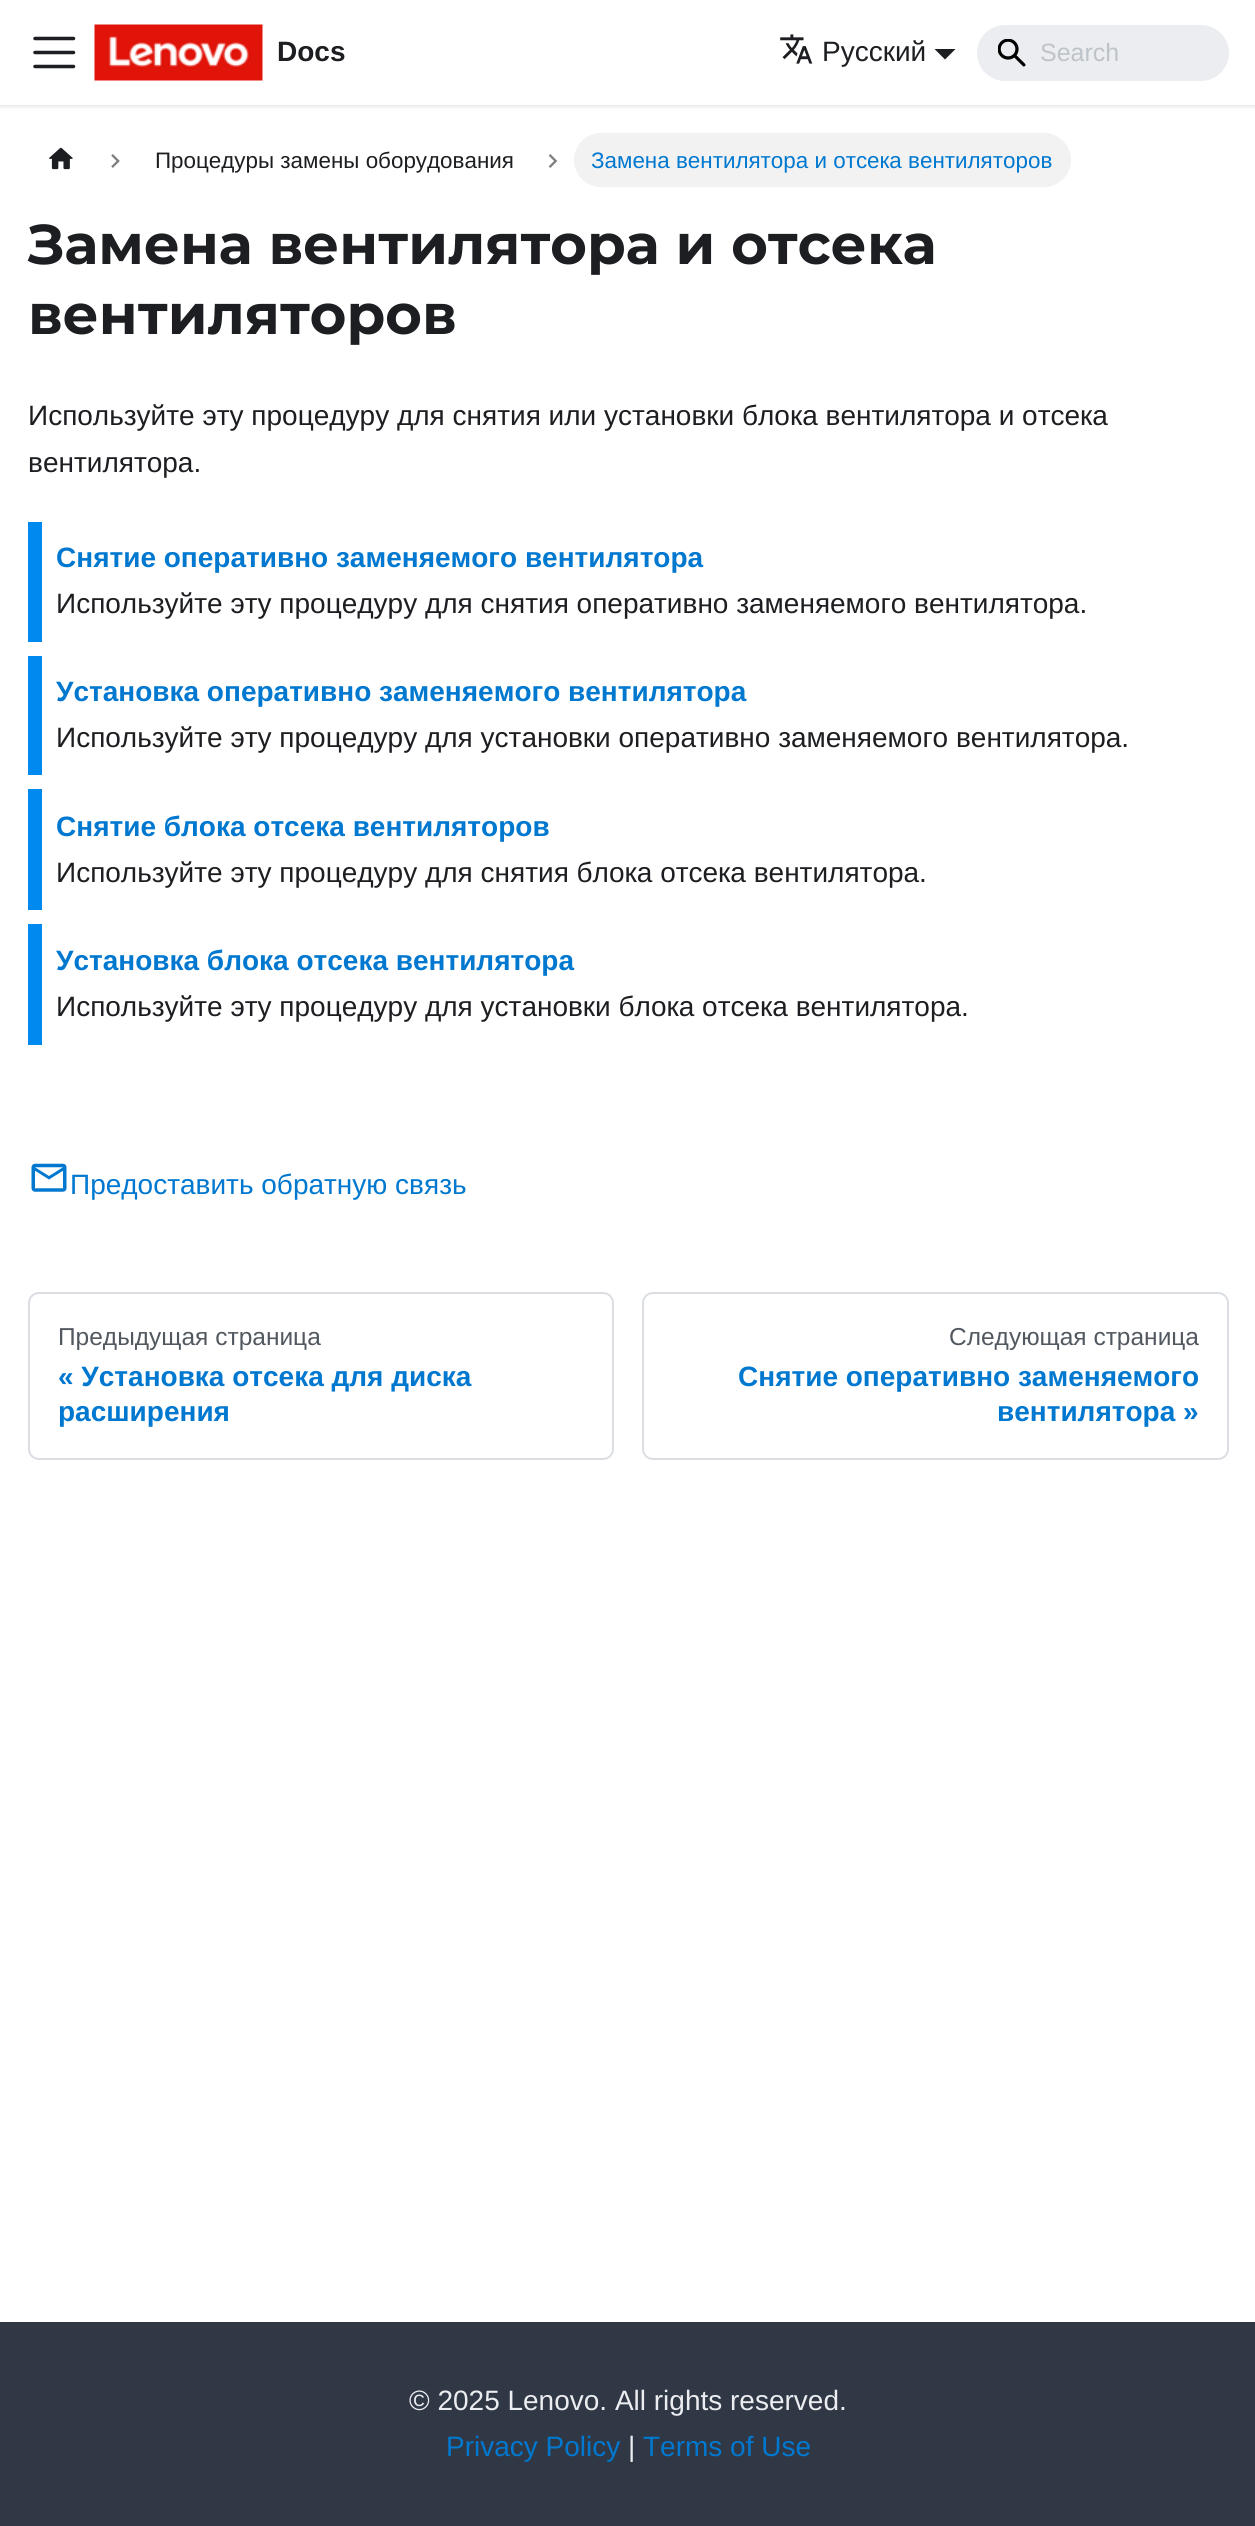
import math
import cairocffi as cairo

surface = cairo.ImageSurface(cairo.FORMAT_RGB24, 1255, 2526)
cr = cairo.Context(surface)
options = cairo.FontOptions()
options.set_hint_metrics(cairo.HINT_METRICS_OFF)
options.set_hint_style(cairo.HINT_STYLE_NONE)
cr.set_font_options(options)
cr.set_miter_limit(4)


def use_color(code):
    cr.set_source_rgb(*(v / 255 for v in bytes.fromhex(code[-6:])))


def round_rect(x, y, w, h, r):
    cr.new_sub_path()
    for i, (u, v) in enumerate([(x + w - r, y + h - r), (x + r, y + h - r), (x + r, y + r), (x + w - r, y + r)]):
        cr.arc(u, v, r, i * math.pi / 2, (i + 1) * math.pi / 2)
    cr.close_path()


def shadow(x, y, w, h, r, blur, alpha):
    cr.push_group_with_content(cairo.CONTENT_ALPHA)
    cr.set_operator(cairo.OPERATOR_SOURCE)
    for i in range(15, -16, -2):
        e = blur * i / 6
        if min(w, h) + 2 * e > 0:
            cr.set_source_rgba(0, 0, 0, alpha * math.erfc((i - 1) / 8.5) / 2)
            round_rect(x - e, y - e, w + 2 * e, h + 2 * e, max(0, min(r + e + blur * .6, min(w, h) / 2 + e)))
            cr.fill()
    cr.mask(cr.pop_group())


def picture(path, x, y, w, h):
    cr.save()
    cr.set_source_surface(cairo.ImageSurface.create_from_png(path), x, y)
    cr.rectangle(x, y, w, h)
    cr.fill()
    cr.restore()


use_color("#ffffff")
cr.paint()
cr.save()
cr.rectangle(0, 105, 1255, 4)
cr.clip()
use_color("#000000")
shadow(0, 2, 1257, 105, 0, 2, 0.1)
cr.restore()
cr.new_path()
cr.move_to(35, 38.5)
cr.line_to(73.5, 38.5)
cr.move_to(35, 52.5)
cr.line_to(73.5, 52.5)
cr.move_to(35, 66.5)
cr.line_to(73.5, 66.5)
use_color("#1c1e21")
cr.set_line_width(3.5)
cr.set_line_cap(cairo.LINE_CAP_ROUND)
cr.stroke()
picture("img1.png", 94, 24, 169, 57)
cr.select_font_face("Liberation Sans", cairo.FONT_SLANT_NORMAL, cairo.FONT_WEIGHT_BOLD)
cr.set_font_size(28)
cr.move_to(277, 61)
cr.show_text("Docs")
picture("img2.png", 780, 34, 33, 30)
cr.select_font_face("Liberation Sans")
cr.move_to(822, 61)
cr.show_text("Русский")
cr.new_path()
cr.move_to(934.5, 49)
cr.line_to(955.5, 49)
cr.line_to(945, 59.5)
cr.close_path()
cr.fill()
use_color("#ebedf0")
round_rect(977, 25, 252, 56, 28)
cr.fill()
picture("img3.png", 998, 39, 28, 28)
cr.set_font_size(25)
use_color("#bec3c9")
cr.move_to(1040, 61)
cr.show_text("Search")
picture("img4.png", 49, 147, 24, 23)
picture("img5.png", 111, 154, 9, 14)
cr.set_font_size(22.4)
use_color("#1c1e21")
cr.move_to(155, 168)
cr.show_text("Процедуры замены оборудования")
picture("img6.png", 548, 154, 10, 14)
use_color("#f2f2f2")
round_rect(574, 133, 497, 54, 27)
cr.fill()
use_color("#0078d0")
cr.move_to(591, 168)
cr.show_text("Замена вентилятора и отсека вентиляторов")
cr.select_font_face("Montserrat", cairo.FONT_SLANT_NORMAL, cairo.FONT_WEIGHT_BOLD)
cr.set_font_size(56)
use_color("#1c1e21")
cr.move_to(28, 264)
cr.show_text("Замена вентилятора и отсека")
cr.move_to(28, 334)
cr.show_text("вентиляторов")
cr.select_font_face("Liberation Sans")
cr.set_font_size(28)
cr.move_to(28, 425)
cr.show_text("Используйте эту процедуру для снятия или установки блока вентилятора и отсека")
cr.move_to(28, 472)
cr.show_text("вентилятора.")
use_color("#008aef")
cr.rectangle(28, 522, 14, 120)
cr.fill()
cr.select_font_face("Liberation Sans", cairo.FONT_SLANT_NORMAL, cairo.FONT_WEIGHT_BOLD)
use_color("#0078d0")
cr.move_to(56, 567)
cr.show_text("Снятие оперативно заменяемого вентилятора")
cr.select_font_face("Liberation Sans")
use_color("#1c1e21")
cr.move_to(56, 613)
cr.show_text("Используйте эту процедуру для снятия оперативно заменяемого вентилятора.")
use_color("#008aef")
cr.rectangle(28, 656, 14, 119)
cr.fill()
cr.select_font_face("Liberation Sans", cairo.FONT_SLANT_NORMAL, cairo.FONT_WEIGHT_BOLD)
use_color("#0078d0")
cr.move_to(56, 701)
cr.show_text("Установка оперативно заменяемого вентилятора")
cr.select_font_face("Liberation Sans")
use_color("#1c1e21")
cr.move_to(56, 747)
cr.show_text("Используйте эту процедуру для установки оперативно заменяемого вентилятора.")
use_color("#008aef")
cr.rectangle(28, 789, 14, 121)
cr.fill()
cr.select_font_face("Liberation Sans", cairo.FONT_SLANT_NORMAL, cairo.FONT_WEIGHT_BOLD)
use_color("#0078d0")
cr.move_to(56, 836)
cr.show_text("Снятие блока отсека вентиляторов")
cr.select_font_face("Liberation Sans")
use_color("#1c1e21")
cr.move_to(56, 882)
cr.show_text("Используйте эту процедуру для снятия блока отсека вентилятора.")
use_color("#008aef")
cr.rectangle(28, 924, 14, 121)
cr.fill()
cr.select_font_face("Liberation Sans", cairo.FONT_SLANT_NORMAL, cairo.FONT_WEIGHT_BOLD)
use_color("#0078d0")
cr.move_to(56, 970)
cr.show_text("Установка блока отсека вентилятора")
cr.select_font_face("Liberation Sans")
use_color("#1c1e21")
cr.move_to(56, 1016)
cr.show_text("Используйте эту процедуру для установки блока отсека вентилятора.")
picture("img7.png", 31, 1163, 36, 29)
use_color("#0078d0")
cr.move_to(70, 1194)
cr.show_text("Предоставить обратную связь")
round_rect(29, 1293, 584, 166, 10)
use_color("#dadde1")
cr.set_line_width(2)
cr.set_line_cap(cairo.LINE_CAP_BUTT)
cr.stroke()
cr.set_font_size(24.5)
use_color("#525860")
cr.move_to(58, 1345)
cr.show_text("Предыдущая страница")
cr.select_font_face("Liberation Sans", cairo.FONT_SLANT_NORMAL, cairo.FONT_WEIGHT_BOLD)
cr.set_font_size(28)
use_color("#0078d0")
cr.move_to(58, 1386)
cr.show_text("« Установка отсека для диска")
cr.move_to(58, 1421)
cr.show_text("расширения")
round_rect(643, 1293, 585, 166, 10)
use_color("#dadde1")
cr.stroke()
cr.select_font_face("Liberation Sans")
cr.set_font_size(24.5)
use_color("#525860")
cr.move_to(949, 1345)
cr.show_text("Следующая страница")
cr.select_font_face("Liberation Sans", cairo.FONT_SLANT_NORMAL, cairo.FONT_WEIGHT_BOLD)
cr.set_font_size(28)
use_color("#0078d0")
cr.move_to(738, 1386)
cr.show_text("Снятие оперативно заменяемого")
cr.move_to(997, 1421)
cr.show_text("вентилятора »")
use_color("#303846")
cr.rectangle(0, 2322, 1255, 204)
cr.fill()
cr.select_font_face("Liberation Sans")
use_color("#ebedf0")
cr.move_to(409, 2410)
cr.show_text("© 2025 Lenovo. All rights reserved.")
use_color("#0078d0")
cr.move_to(446, 2456)
cr.show_text("Privacy Policy")
use_color("#ebedf0")
cr.move_to(628, 2456)
cr.show_text("|")
use_color("#0078d0")
cr.move_to(643, 2456)
cr.show_text("Terms of Use")
surface.write_to_png("result.png")
